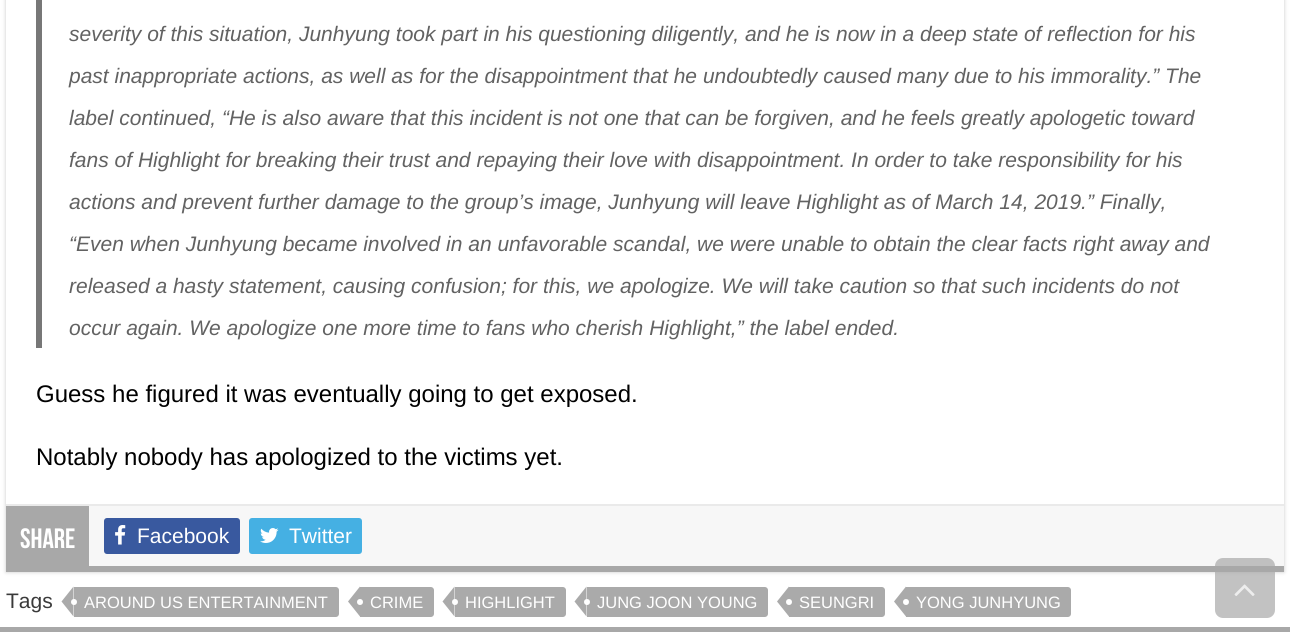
import math
import cairocffi as cairo

surface = cairo.ImageSurface(cairo.FORMAT_RGB24, 1290, 632)
cr = cairo.Context(surface)
options = cairo.FontOptions()
options.set_hint_metrics(cairo.HINT_METRICS_OFF)
options.set_hint_style(cairo.HINT_STYLE_NONE)
cr.set_font_options(options)
cr.set_miter_limit(4)


def use_color(code):
    cr.set_source_rgb(*(v / 255 for v in bytes.fromhex(code[-6:])))


def round_rect(x, y, w, h, r):
    cr.new_sub_path()
    for i, (u, v) in enumerate([(x + w - r, y + h - r), (x + r, y + h - r), (x + r, y + r), (x + w - r, y + r)]):
        cr.arc(u, v, r, i * math.pi / 2, (i + 1) * math.pi / 2)
    cr.close_path()


def shadow(x, y, w, h, r, blur, alpha):
    cr.push_group_with_content(cairo.CONTENT_ALPHA)
    cr.set_operator(cairo.OPERATOR_SOURCE)
    for i in range(15, -16, -2):
        e = blur * i / 6
        if min(w, h) + 2 * e > 0:
            cr.set_source_rgba(0, 0, 0, alpha * math.erfc((i - 1) / 8.5) / 2)
            round_rect(x - e, y - e, w + 2 * e, h + 2 * e, max(0, min(r + e + blur * .6, min(w, h) / 2 + e)))
            cr.fill()
    cr.mask(cr.pop_group())


def picture(path, x, y, w, h):
    cr.save()
    cr.set_source_surface(cairo.ImageSurface.create_from_png(path), x, y)
    cr.rectangle(x, y, w, h)
    cr.fill()
    cr.restore()


use_color("#ffffff")
cr.paint()
use_color("#cacaca")
shadow(6, -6, 1278, 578, 0, 2, 1)
use_color("#ffffff")
cr.rectangle(6, 0, 1278, 504)
cr.fill()
use_color("#a8a8a8")
cr.rectangle(6, 566, 1278, 6)
cr.fill()
use_color("#777777")
cr.rectangle(36, 0, 6, 348)
cr.fill()
cr.select_font_face("Liberation Sans", cairo.FONT_SLANT_ITALIC)
cr.set_font_size(21)
use_color("#626262")
cr.move_to(69, 41)
cr.show_text("severity of this situation, Junhyung took part in his questioning diligently, and he is now in a deep state of reflection for his")
cr.move_to(69, 83)
cr.show_text("past inappropriate actions, as well as for the disappointment that he undoubtedly caused many due to his immorality.” The")
cr.move_to(69, 125)
cr.show_text("label continued, “He is also aware that this incident is not one that can be forgiven, and he feels greatly apologetic toward")
cr.move_to(69, 167)
cr.show_text("fans of Highlight for breaking their trust and repaying their love with disappointment. In order to take responsibility for his")
cr.move_to(69, 209)
cr.show_text("actions and prevent further damage to the group’s image, Junhyung will leave Highlight as of March 14, 2019.” Finally,")
cr.move_to(69, 251)
cr.show_text("“Even when Junhyung became involved in an unfavorable scandal, we were unable to obtain the clear facts right away and")
cr.move_to(69, 293)
cr.show_text("released a hasty statement, causing confusion; for this, we apologize. We will take caution so that such incidents do not")
cr.move_to(69, 335)
cr.show_text("occur again. We apologize one more time to fans who cherish Highlight,” the label ended.")
cr.select_font_face("Liberation Sans")
cr.set_font_size(24)
use_color("#000000")
cr.move_to(36, 402)
cr.show_text("Guess he figured it was eventually going to get exposed.")
cr.move_to(36, 465)
cr.show_text("Notably nobody has apologized to the victims yet.")
use_color("#f7f7f7")
cr.rectangle(89, 506, 1195, 60)
cr.fill()
use_color("#eaeaea")
cr.rectangle(6, 504, 1278, 2)
cr.fill()
use_color("#a8a8a8")
cr.rectangle(6, 506, 83, 60)
cr.fill()
cr.select_font_face("Bebas Neue", cairo.FONT_SLANT_NORMAL, cairo.FONT_WEIGHT_BOLD)
cr.set_font_size(28)
use_color("#ffffff")
cr.move_to(20, 548)
cr.show_text("Share")
use_color("#39599f")
round_rect(104, 518, 136, 36, 3)
cr.fill()
picture("img1.png", 115, 525, 11, 20)
cr.select_font_face("Liberation Sans")
cr.set_font_size(21)
use_color("#ffffff")
cr.move_to(137, 543)
cr.show_text("Facebook")
use_color("#45b0e3")
round_rect(249, 518, 113, 36, 3)
cr.fill()
picture("img2.png", 260, 528, 19, 15)
use_color("#ffffff")
cr.move_to(289, 543)
cr.show_text("Twitter")
use_color("#3a3a3a")
cr.move_to(6, 608)
cr.show_text("Tags")
use_color("#aaaaaa")
cr.new_path()
cr.move_to(74, 587)
cr.line_to(336, 587)
cr.curve_to(337.5, 587, 339, 588.5, 339, 590)
cr.line_to(339, 614)
cr.curve_to(339, 615.5, 337.5, 617, 336, 617)
cr.line_to(74, 617)
cr.close_path()
cr.fill()
cr.new_path()
cr.move_to(73.5, 586.5)
cr.line_to(73.5, 616.5)
cr.line_to(61.5, 601.5)
cr.close_path()
cr.fill()
cr.set_font_size(16.5)
use_color("#ffffff")
cr.move_to(84, 608)
cr.show_text("AROUND US ENTERTAINMENT")
cr.new_path()
cr.arc(74, 602, 3, 0, 2 * math.pi)
cr.fill()
use_color("#aaaaaa")
cr.new_path()
cr.move_to(360, 587)
cr.line_to(431, 587)
cr.curve_to(432.5, 587, 434, 588.5, 434, 590)
cr.line_to(434, 614)
cr.curve_to(434, 615.5, 432.5, 617, 431, 617)
cr.line_to(360, 617)
cr.close_path()
cr.fill()
cr.new_path()
cr.move_to(360, 586.5)
cr.line_to(360, 616.5)
cr.line_to(348, 601.5)
cr.close_path()
cr.fill()
use_color("#ffffff")
cr.move_to(370, 608)
cr.show_text("CRIME")
cr.new_path()
cr.arc(360, 602, 3, 0, 2 * math.pi)
cr.fill()
use_color("#aaaaaa")
cr.new_path()
cr.move_to(455, 587)
cr.line_to(563, 587)
cr.curve_to(564.5, 587, 566, 588.5, 566, 590)
cr.line_to(566, 614)
cr.curve_to(566, 615.5, 564.5, 617, 563, 617)
cr.line_to(455, 617)
cr.close_path()
cr.fill()
cr.new_path()
cr.move_to(454.5, 586.5)
cr.line_to(454.5, 616.5)
cr.line_to(442.5, 601.5)
cr.close_path()
cr.fill()
use_color("#ffffff")
cr.move_to(465, 608)
cr.show_text("HIGHLIGHT")
cr.new_path()
cr.arc(455, 602, 3, 0, 2 * math.pi)
cr.fill()
use_color("#aaaaaa")
cr.new_path()
cr.move_to(587, 587)
cr.line_to(765, 587)
cr.curve_to(766.5, 587, 768, 588.5, 768, 590)
cr.line_to(768, 614)
cr.curve_to(768, 615.5, 766.5, 617, 765, 617)
cr.line_to(587, 617)
cr.close_path()
cr.fill()
cr.new_path()
cr.move_to(586.5, 586.5)
cr.line_to(586.5, 616.5)
cr.line_to(574.5, 601.5)
cr.close_path()
cr.fill()
use_color("#ffffff")
cr.move_to(597, 608)
cr.show_text("JUNG JOON YOUNG")
cr.new_path()
cr.arc(587, 602, 3, 0, 2 * math.pi)
cr.fill()
use_color("#aaaaaa")
cr.new_path()
cr.move_to(789, 587)
cr.line_to(882, 587)
cr.curve_to(883.5, 587, 885, 588.5, 885, 590)
cr.line_to(885, 614)
cr.curve_to(885, 615.5, 883.5, 617, 882, 617)
cr.line_to(789, 617)
cr.close_path()
cr.fill()
cr.new_path()
cr.move_to(789, 586.5)
cr.line_to(789, 616.5)
cr.line_to(777, 601.5)
cr.close_path()
cr.fill()
use_color("#ffffff")
cr.move_to(799, 608)
cr.show_text("SEUNGRI")
cr.new_path()
cr.arc(789, 602, 3, 0, 2 * math.pi)
cr.fill()
use_color("#aaaaaa")
cr.new_path()
cr.move_to(906, 587)
cr.line_to(1068, 587)
cr.curve_to(1069.5, 587, 1071, 588.5, 1071, 590)
cr.line_to(1071, 614)
cr.curve_to(1071, 615.5, 1069.5, 617, 1068, 617)
cr.line_to(906, 617)
cr.close_path()
cr.fill()
cr.new_path()
cr.move_to(906, 586.5)
cr.line_to(906, 616.5)
cr.line_to(894, 601.5)
cr.close_path()
cr.fill()
use_color("#ffffff")
cr.move_to(916, 608)
cr.show_text("YONG JUNHYUNG")
cr.new_path()
cr.arc(906, 602, 3, 0, 2 * math.pi)
cr.fill()
cr.set_source_rgba(0.659, 0.659, 0.659, 0.7)
round_rect(1215, 558, 60, 60, 8)
cr.fill()
picture("img3.png", 1234, 584, 21, 12)
use_color("#a8a8a8")
cr.rectangle(0, 627, 1290, 5)
cr.fill()
surface.write_to_png("result.png")
